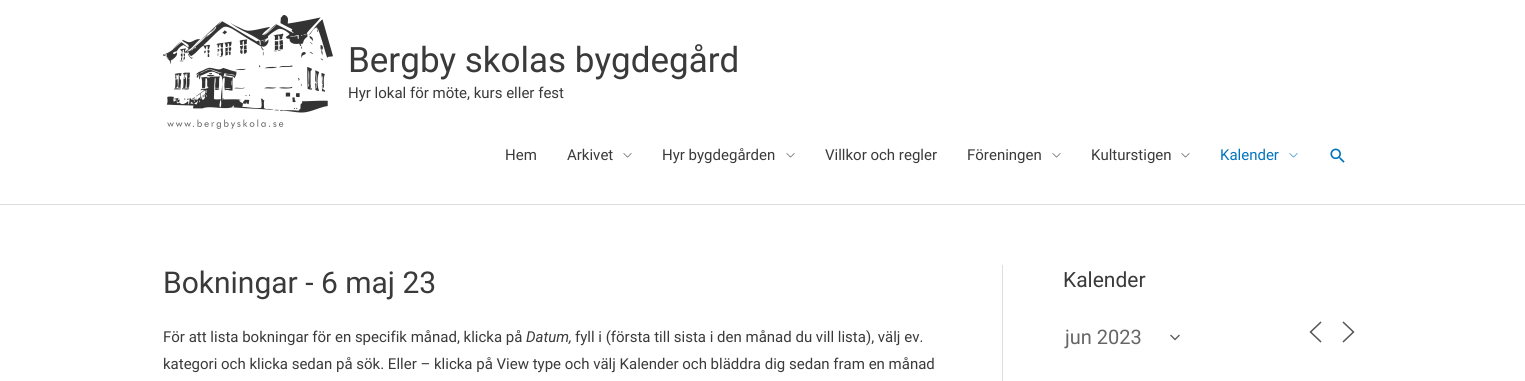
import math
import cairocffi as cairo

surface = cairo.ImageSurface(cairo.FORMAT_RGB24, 1525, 381)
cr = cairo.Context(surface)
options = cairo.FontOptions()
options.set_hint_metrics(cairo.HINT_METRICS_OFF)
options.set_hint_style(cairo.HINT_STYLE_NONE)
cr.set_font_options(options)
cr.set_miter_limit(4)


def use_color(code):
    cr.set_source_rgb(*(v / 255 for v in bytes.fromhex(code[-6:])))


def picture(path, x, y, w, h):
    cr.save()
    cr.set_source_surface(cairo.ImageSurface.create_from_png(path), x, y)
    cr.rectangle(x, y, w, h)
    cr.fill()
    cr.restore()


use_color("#ffffff")
cr.paint()
use_color("#dddddd")
cr.rectangle(0, 204, 1525, 1)
cr.fill()
picture("img1.png", 163, 15, 170, 114)
cr.select_font_face("Roboto")
cr.set_font_size(35)
use_color("#3a3a3a")
cr.move_to(348, 72)
cr.show_text("Bergby skolas bygdegård")
cr.set_font_size(15)
cr.move_to(348, 98)
cr.show_text("Hyr lokal för möte, kurs eller fest")
cr.move_to(505, 160)
cr.show_text("Hem")
cr.move_to(567, 160)
cr.show_text("Arkivet")
picture("img2.png", 623, 153, 9, 5)
cr.move_to(662, 160)
cr.show_text("Hyr bygdegården")
picture("img2.png", 786, 153, 9, 5)
cr.move_to(825, 160)
cr.show_text("Villkor och regler")
cr.move_to(967, 160)
cr.show_text("Föreningen")
picture("img2.png", 1052, 153, 9, 5)
cr.move_to(1091, 160)
cr.show_text("Kulturstigen")
picture("img2.png", 1181, 153, 9, 5)
use_color("#0274be")
cr.move_to(1220, 160)
cr.show_text("Kalender")
picture("img3.png", 1289, 153, 9, 5)
picture("img4.png", 1330, 148, 15, 15)
use_color("#dddddd")
cr.rectangle(1002, 265, 1, 116)
cr.fill()
cr.set_font_size(30)
use_color("#3a3a3a")
cr.move_to(163, 293)
cr.show_text("Bokningar - 6 maj 23")
cr.set_font_size(15)
cr.move_to(163, 342)
cr.show_text("För att lista bokningar för en specifik månad, klicka på")
cr.select_font_face("Roboto", cairo.FONT_SLANT_ITALIC)
cr.move_to(526, 342)
cr.show_text("Datum,")
cr.select_font_face("Roboto")
cr.move_to(575, 342)
cr.show_text("fyll i (första till sista i den månad du vill lista), välj ev.")
cr.move_to(163, 369)
cr.show_text("kategori och klicka sedan på sök. Eller – klicka på View type och välj Kalender och bläddra dig sedan fram en månad")
cr.set_font_size(21)
cr.move_to(1063, 287)
cr.show_text("Kalender")
cr.new_path()
cr.move_to(1171, 335.5)
cr.line_to(1175, 339.5)
cr.line_to(1179, 335.5)
use_color("#555555")
cr.set_line_width(1.3)
cr.set_line_cap(cairo.LINE_CAP_SQUARE)
cr.stroke()
cr.set_font_size(20)
use_color("#666666")
cr.move_to(1065, 344)
cr.show_text("jun 2023")
cr.new_path()
cr.move_to(1320.5, 341.5)
cr.line_to(1310.5, 332)
cr.line_to(1320.5, 322.5)
cr.move_to(1343.5, 341.5)
cr.line_to(1353.5, 332)
cr.line_to(1343.5, 322.5)
use_color("#555555")
cr.set_line_width(1.5)
cr.stroke()
surface.write_to_png("result.png")
